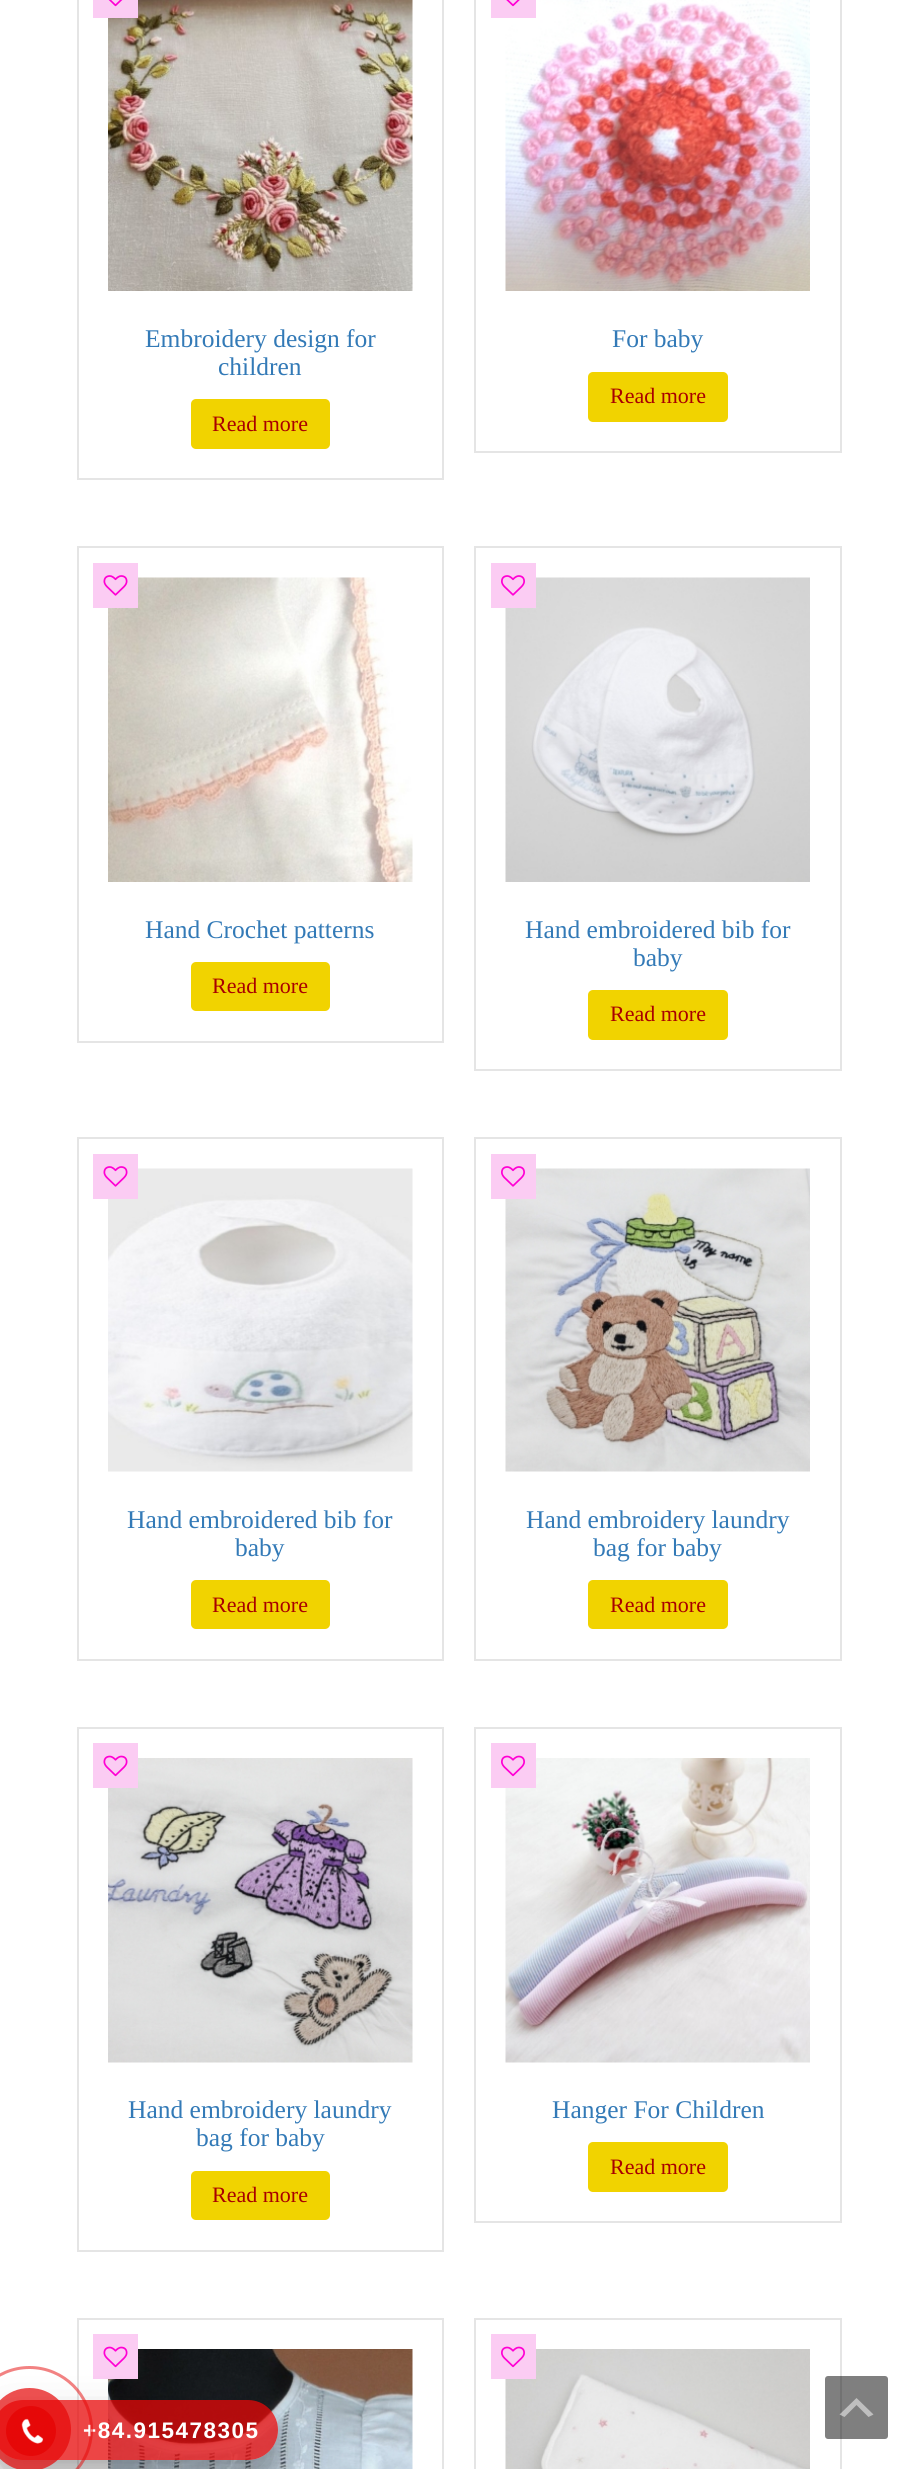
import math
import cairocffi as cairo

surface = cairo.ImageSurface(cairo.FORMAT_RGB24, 918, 2469)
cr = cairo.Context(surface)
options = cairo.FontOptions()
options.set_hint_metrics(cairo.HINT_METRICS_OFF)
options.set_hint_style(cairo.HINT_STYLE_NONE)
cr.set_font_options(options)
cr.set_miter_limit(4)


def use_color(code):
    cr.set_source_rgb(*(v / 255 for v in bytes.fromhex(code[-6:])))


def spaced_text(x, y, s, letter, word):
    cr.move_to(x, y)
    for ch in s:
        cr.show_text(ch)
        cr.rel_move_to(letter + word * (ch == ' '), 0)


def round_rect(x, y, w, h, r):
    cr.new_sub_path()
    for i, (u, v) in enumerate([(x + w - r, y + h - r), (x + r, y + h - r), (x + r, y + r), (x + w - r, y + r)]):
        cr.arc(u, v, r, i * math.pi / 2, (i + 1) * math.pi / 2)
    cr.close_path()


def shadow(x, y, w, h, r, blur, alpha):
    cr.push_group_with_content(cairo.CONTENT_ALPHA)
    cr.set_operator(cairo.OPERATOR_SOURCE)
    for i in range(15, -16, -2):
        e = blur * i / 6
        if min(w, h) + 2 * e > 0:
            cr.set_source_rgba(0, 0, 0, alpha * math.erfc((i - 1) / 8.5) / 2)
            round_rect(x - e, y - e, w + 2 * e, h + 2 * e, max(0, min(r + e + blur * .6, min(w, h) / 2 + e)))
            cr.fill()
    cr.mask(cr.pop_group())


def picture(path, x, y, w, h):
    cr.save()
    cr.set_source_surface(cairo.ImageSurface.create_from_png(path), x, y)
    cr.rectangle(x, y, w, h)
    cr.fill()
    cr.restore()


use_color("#ffffff")
cr.paint()
cr.rectangle(78, -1, 365, 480)
use_color("#e5e5e5")
cr.stroke()
picture("img2.png", 108, 0, 305, 291)
use_color("#fbccf3")
cr.rectangle(93, 0, 45, 18)
cr.fill()
picture("img1.png", 108, 0, 15, 7)
cr.select_font_face("Liberation Serif")
cr.set_font_size(25.5)
use_color("#337ab7")
cr.move_to(145, 347)
cr.show_text("Embroidery design for")
cr.move_to(218, 375)
cr.show_text("children")
use_color("#f1d300")
round_rect(191, 399, 139, 50, 5)
cr.fill()
cr.set_font_size(22)
use_color("#a90000")
cr.move_to(212, 431)
cr.show_text("Read more")
cr.rectangle(475, -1, 366, 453)
use_color("#e5e5e5")
cr.stroke()
picture("img4.png", 505, 0, 305, 291)
use_color("#fbccf3")
cr.rectangle(491, 0, 45, 18)
cr.fill()
picture("img3.png", 506, 0, 14, 7)
cr.set_font_size(25.5)
use_color("#337ab7")
cr.move_to(612, 347)
cr.show_text("For baby")
use_color("#f1d300")
round_rect(588, 372, 140, 50, 5)
cr.fill()
cr.set_font_size(22)
use_color("#a90000")
cr.move_to(610, 403)
cr.show_text("Read more")
cr.rectangle(78, 547, 365, 495)
use_color("#e5e5e5")
cr.stroke()
picture("img6.png", 108, 577, 305, 305)
use_color("#fbccf3")
cr.rectangle(93, 563, 45, 45)
cr.fill()
picture("img5.png", 103, 575, 25, 21)
cr.set_font_size(25.5)
use_color("#337ab7")
cr.move_to(145, 938)
cr.show_text("Hand Crochet patterns")
use_color("#f1d300")
round_rect(191, 962, 139, 49, 5)
cr.fill()
cr.set_font_size(22)
use_color("#a90000")
cr.move_to(212, 993)
cr.show_text("Read more")
cr.rectangle(475, 547, 366, 523)
use_color("#e5e5e5")
cr.stroke()
picture("img8.png", 505, 577, 305, 305)
use_color("#fbccf3")
cr.rectangle(491, 563, 45, 45)
cr.fill()
picture("img7.png", 501, 575, 24, 21)
cr.set_font_size(25.5)
use_color("#337ab7")
cr.move_to(525, 938)
cr.show_text("Hand embroidered bib for")
cr.move_to(633, 966)
cr.show_text("baby")
use_color("#f1d300")
round_rect(588, 990, 140, 50, 5)
cr.fill()
cr.set_font_size(22)
use_color("#a90000")
cr.move_to(610, 1021)
cr.show_text("Read more")
cr.rectangle(78, 1138, 365, 522)
use_color("#e5e5e5")
cr.stroke()
picture("img9.png", 108, 1168, 305, 304)
use_color("#fbccf3")
cr.rectangle(93, 1154, 45, 45)
cr.fill()
picture("img5.png", 103, 1166, 25, 21)
cr.set_font_size(25.5)
use_color("#337ab7")
cr.move_to(127, 1528)
cr.show_text("Hand embroidered bib for")
cr.move_to(235, 1556)
cr.show_text("baby")
use_color("#f1d300")
round_rect(191, 1580, 139, 49, 5)
cr.fill()
cr.set_font_size(22)
use_color("#a90000")
cr.move_to(212, 1612)
cr.show_text("Read more")
cr.rectangle(475, 1138, 366, 522)
use_color("#e5e5e5")
cr.stroke()
picture("img10.png", 505, 1168, 305, 304)
use_color("#fbccf3")
cr.rectangle(491, 1154, 45, 45)
cr.fill()
picture("img7.png", 501, 1166, 24, 21)
cr.set_font_size(25.5)
use_color("#337ab7")
cr.move_to(526, 1528)
cr.show_text("Hand embroidery laundry")
cr.move_to(593, 1556)
cr.show_text("bag for baby")
use_color("#f1d300")
round_rect(588, 1580, 140, 49, 5)
cr.fill()
cr.set_font_size(22)
use_color("#a90000")
cr.move_to(610, 1612)
cr.show_text("Read more")
cr.rectangle(78, 1728, 365, 523)
use_color("#e5e5e5")
cr.stroke()
picture("img12.png", 108, 1758, 305, 305)
use_color("#fbccf3")
cr.rectangle(93, 1743, 45, 45)
cr.fill()
picture("img11.png", 103, 1755, 25, 22)
cr.set_font_size(25.5)
use_color("#337ab7")
cr.move_to(128, 2118)
cr.show_text("Hand embroidery laundry")
cr.move_to(196, 2146)
cr.show_text("bag for baby")
use_color("#f1d300")
round_rect(191, 2171, 139, 49, 5)
cr.fill()
cr.set_font_size(22)
use_color("#a90000")
cr.move_to(212, 2202)
cr.show_text("Read more")
cr.rectangle(475, 1728, 366, 494)
use_color("#e5e5e5")
cr.stroke()
picture("img14.png", 505, 1758, 305, 305)
use_color("#fbccf3")
cr.rectangle(491, 1743, 45, 45)
cr.fill()
picture("img13.png", 501, 1755, 24, 22)
cr.set_font_size(25.5)
use_color("#337ab7")
cr.move_to(552, 2118)
cr.show_text("Hanger For Children")
use_color("#f1d300")
round_rect(588, 2142, 140, 50, 5)
cr.fill()
cr.set_font_size(22)
use_color("#a90000")
cr.move_to(610, 2174)
cr.show_text("Read more")
cr.rectangle(78, 2319, 365, 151)
use_color("#e5e5e5")
cr.stroke()
picture("img15.png", 108, 2349, 305, 120)
use_color("#fbccf3")
cr.rectangle(93, 2334, 45, 45)
cr.fill()
picture("img11.png", 103, 2346, 25, 22)
cr.rectangle(475, 2319, 366, 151)
use_color("#e5e5e5")
cr.stroke()
picture("img16.png", 505, 2349, 305, 120)
use_color("#fbccf3")
cr.rectangle(491, 2334, 45, 45)
cr.fill()
picture("img13.png", 501, 2346, 24, 22)
cr.save()
cr.set_fill_rule(cairo.FILL_RULE_EVEN_ODD)
cr.new_path()
cr.move_to(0, 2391)
cr.line_to(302, 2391)
cr.line_to(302, 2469)
cr.line_to(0, 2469)
cr.close_path()
cr.move_to(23, 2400)
cr.line_to(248, 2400)
cr.curve_to(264.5, 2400, 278, 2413.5, 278, 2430)
cr.curve_to(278, 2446.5, 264.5, 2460, 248, 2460)
cr.line_to(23, 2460)
cr.curve_to(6.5, 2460, -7, 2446.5, -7, 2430)
cr.curve_to(-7, 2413.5, 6.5, 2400, 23, 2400)
cr.close_path()
cr.clip()
use_color("#000000")
shadow(-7, 2415, 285, 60, 30, 7.5, 0.1)
cr.restore()
cr.save()
cr.set_fill_rule(cairo.FILL_RULE_EVEN_ODD)
cr.new_path()
cr.move_to(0, 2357)
cr.line_to(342, 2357)
cr.line_to(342, 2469)
cr.line_to(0, 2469)
cr.close_path()
cr.move_to(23, 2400)
cr.line_to(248, 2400)
cr.curve_to(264.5, 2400, 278, 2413.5, 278, 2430)
cr.curve_to(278, 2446.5, 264.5, 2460, 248, 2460)
cr.line_to(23, 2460)
cr.curve_to(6.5, 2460, -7, 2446.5, -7, 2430)
cr.curve_to(-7, 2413.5, 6.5, 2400, 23, 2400)
cr.close_path()
cr.clip()
use_color("#000000")
shadow(-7, 2421, 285, 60, 30, 21, 0.25)
cr.restore()
cr.set_source_rgba(0.902, 0.031, 0.031, 0.75)
round_rect(-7, 2400, 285, 60, 30)
cr.fill()
cr.select_font_face("Liberation Sans", cairo.FONT_SLANT_NORMAL, cairo.FONT_WEIGHT_BOLD)
cr.set_font_size(22.5)
use_color("#ffffff")
spaced_text(83, 2438, "+84.915478305", 1.5, 0)
cr.new_path()
cr.arc(29.5, 2429.5, 62, 0, 2 * math.pi)
cr.set_source_rgba(0.902, 0.031, 0.031, 0.5)
cr.set_line_width(3)
cr.stroke()
cr.set_source_rgba(0.902, 0.031, 0.031, 0.7)
cr.arc(29.5, 2429.5, 41.5, 0, 2 * math.pi)
cr.fill()
use_color("#e60808")
cr.arc(31, 2431, 25, 0, 2 * math.pi)
cr.fill()
picture("img17.png", 21, 2418, 23, 26)
cr.set_source_rgba(0, 0, 0, 0.5)
round_rect(825, 2376, 63, 63, 3)
cr.fill()
cr.set_source_rgba(1, 1, 1, 0.5)
cr.new_path()
cr.move_to(868.5, 2417)
cr.line_to(856.5, 2405)
cr.line_to(844.5, 2417)
cr.line_to(839.5, 2414.5)
cr.line_to(856.5, 2398)
cr.line_to(873.5, 2414.5)
cr.close_path()
cr.fill()
surface.write_to_png("result.png")
